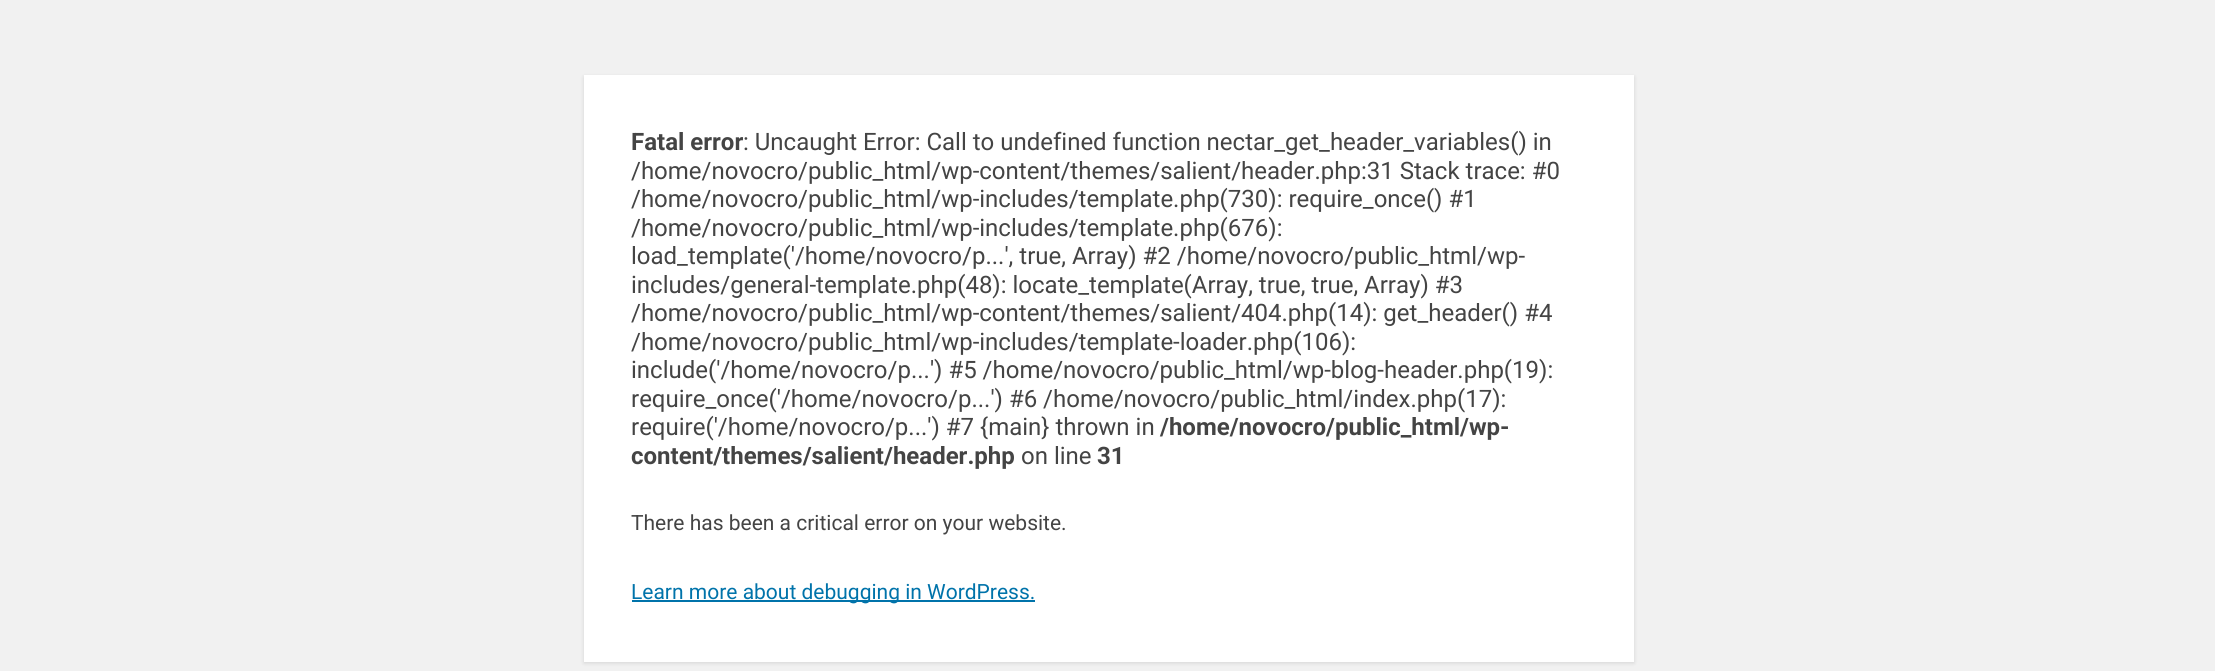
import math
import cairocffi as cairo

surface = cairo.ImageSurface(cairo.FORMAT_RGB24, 2215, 671)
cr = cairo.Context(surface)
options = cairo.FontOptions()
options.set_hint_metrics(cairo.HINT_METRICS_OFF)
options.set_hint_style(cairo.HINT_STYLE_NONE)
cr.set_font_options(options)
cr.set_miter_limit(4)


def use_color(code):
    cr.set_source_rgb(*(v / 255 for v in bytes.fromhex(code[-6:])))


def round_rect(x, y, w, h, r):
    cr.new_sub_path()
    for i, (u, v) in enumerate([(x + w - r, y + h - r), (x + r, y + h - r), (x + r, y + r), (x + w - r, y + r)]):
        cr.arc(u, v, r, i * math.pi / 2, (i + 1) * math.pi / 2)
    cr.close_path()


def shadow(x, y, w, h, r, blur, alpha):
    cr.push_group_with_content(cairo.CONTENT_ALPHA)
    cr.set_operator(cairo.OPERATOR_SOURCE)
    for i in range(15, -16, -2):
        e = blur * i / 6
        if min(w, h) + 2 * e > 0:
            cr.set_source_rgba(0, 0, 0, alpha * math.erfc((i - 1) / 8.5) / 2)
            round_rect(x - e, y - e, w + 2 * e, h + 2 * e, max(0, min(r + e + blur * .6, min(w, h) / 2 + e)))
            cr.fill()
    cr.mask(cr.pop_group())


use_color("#f1f1f1")
cr.paint()
use_color("#000000")
shadow(584, 77, 1050, 586, 0, 2, 0.13)
use_color("#ffffff")
cr.rectangle(584, 75, 1050, 587)
cr.fill()
cr.select_font_face("Roboto", cairo.FONT_SLANT_NORMAL, cairo.FONT_WEIGHT_BOLD)
cr.set_font_size(24)
use_color("#444444")
cr.move_to(631, 150)
cr.show_text("Fatal error")
cr.select_font_face("Roboto")
cr.move_to(743, 150)
cr.show_text(": Uncaught Error: Call to undefined function nectar_get_header_variables() in")
cr.move_to(631, 179)
cr.show_text("/home/novocro/public_html/wp-content/themes/salient/header.php:31 Stack trace: #0")
cr.move_to(631, 207)
cr.show_text("/home/novocro/public_html/wp-includes/template.php(730): require_once() #1")
cr.move_to(631, 236)
cr.show_text("/home/novocro/public_html/wp-includes/template.php(676):")
cr.move_to(631, 264)
cr.show_text("load_template('/home/novocro/p...', true, Array) #2 /home/novocro/public_html/wp-")
cr.move_to(631, 293)
cr.show_text("includes/general-template.php(48): locate_template(Array, true, true, Array) #3")
cr.move_to(631, 321)
cr.show_text("/home/novocro/public_html/wp-content/themes/salient/404.php(14): get_header() #4")
cr.move_to(631, 350)
cr.show_text("/home/novocro/public_html/wp-includes/template-loader.php(106):")
cr.move_to(631, 378)
cr.show_text("include('/home/novocro/p...') #5 /home/novocro/public_html/wp-blog-header.php(19):")
cr.move_to(631, 407)
cr.show_text("require_once('/home/novocro/p...') #6 /home/novocro/public_html/index.php(17):")
cr.move_to(631, 435)
cr.show_text("require('/home/novocro/p...') #7 {main} thrown in")
cr.select_font_face("Roboto", cairo.FONT_SLANT_NORMAL, cairo.FONT_WEIGHT_BOLD)
cr.move_to(1160, 435)
cr.show_text("/home/novocro/public_html/wp-")
cr.move_to(631, 464)
cr.show_text("content/themes/salient/header.php")
cr.select_font_face("Roboto")
cr.move_to(1021, 464)
cr.show_text("on line")
cr.select_font_face("Roboto", cairo.FONT_SLANT_NORMAL, cairo.FONT_WEIGHT_BOLD)
cr.move_to(1097, 464)
cr.show_text("31")
cr.select_font_face("Roboto")
cr.set_font_size(21)
cr.move_to(631, 530)
cr.show_text("There has been a critical error on your website.")
use_color("#0073aa")
cr.rectangle(632, 600, 403, 2)
cr.fill()
cr.move_to(631, 599)
cr.show_text("Learn more about debugging in WordPress.")
surface.write_to_png("result.png")
